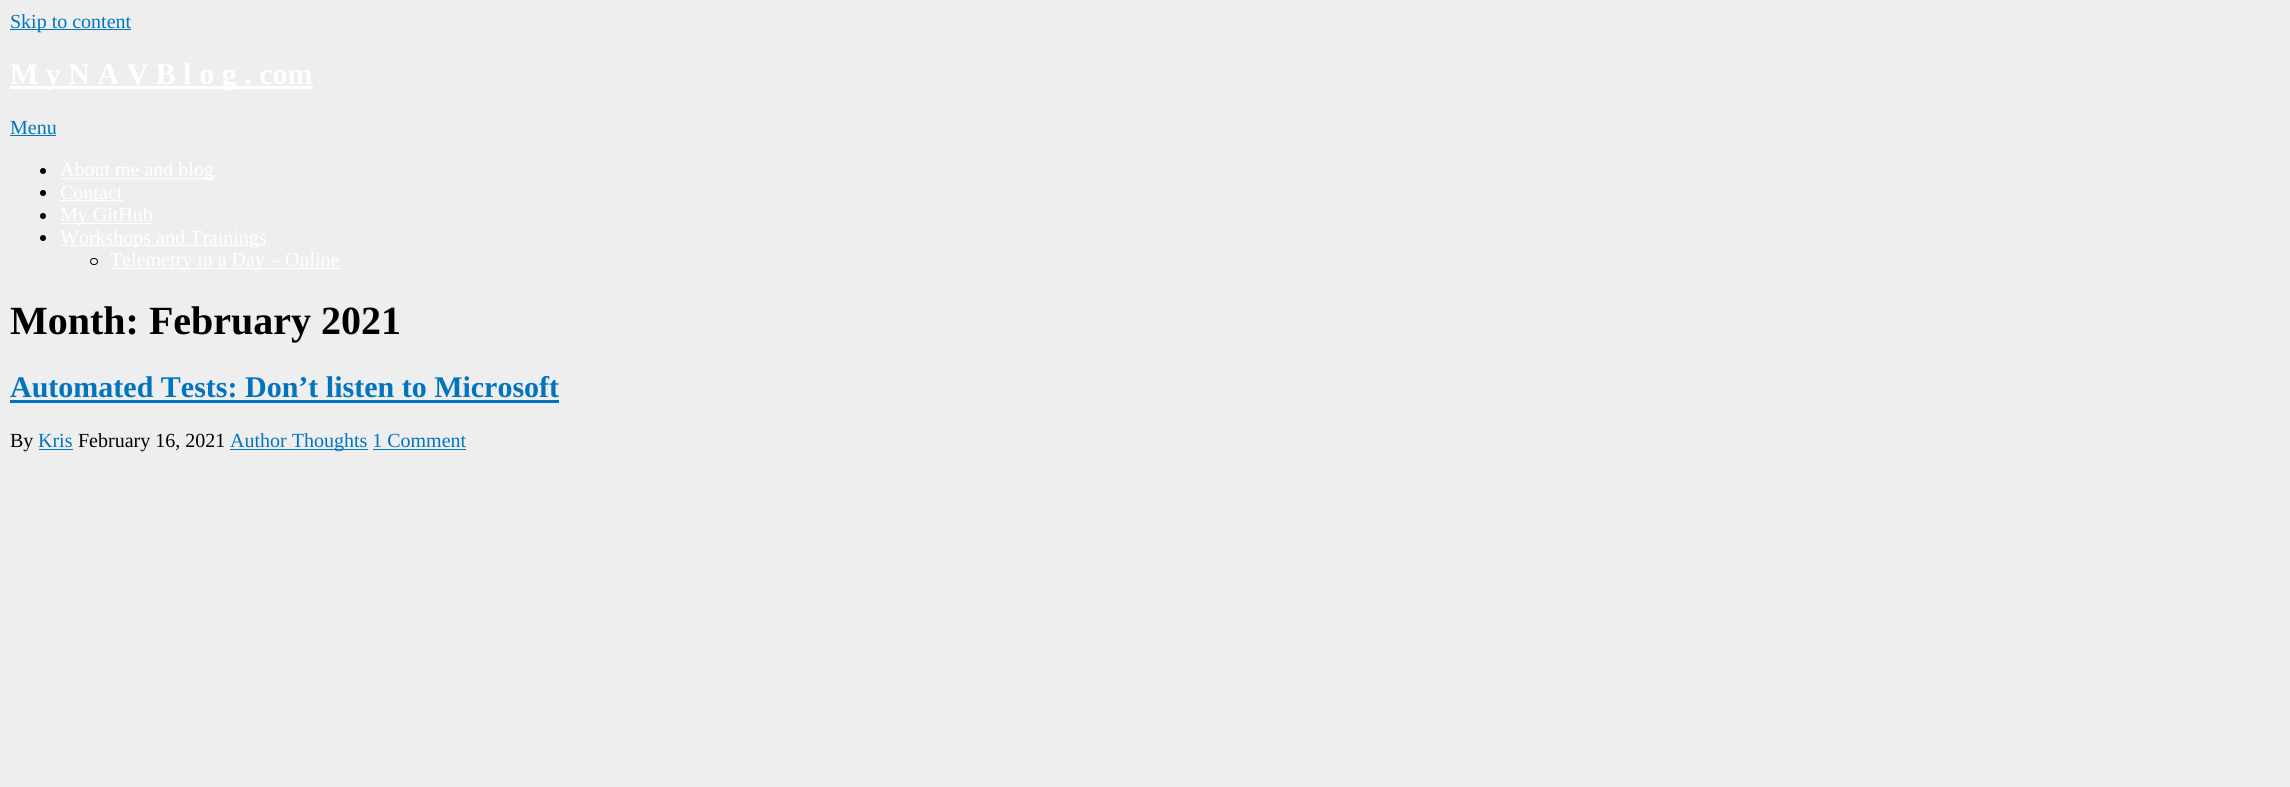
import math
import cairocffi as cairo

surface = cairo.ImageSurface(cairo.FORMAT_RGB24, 2290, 787)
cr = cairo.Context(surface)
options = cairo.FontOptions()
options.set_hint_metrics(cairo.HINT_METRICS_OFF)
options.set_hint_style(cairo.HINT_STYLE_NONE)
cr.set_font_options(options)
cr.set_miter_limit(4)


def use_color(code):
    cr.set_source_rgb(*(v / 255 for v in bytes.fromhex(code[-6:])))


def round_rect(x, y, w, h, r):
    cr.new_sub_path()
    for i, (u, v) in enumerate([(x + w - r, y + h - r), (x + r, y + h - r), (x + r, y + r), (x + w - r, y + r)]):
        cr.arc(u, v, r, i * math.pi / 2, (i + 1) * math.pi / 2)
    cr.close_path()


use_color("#eeeeee")
cr.paint()
use_color("#0274be")
cr.rectangle(10, 29, 121, 1)
cr.fill()
cr.select_font_face("Liberation Serif")
cr.set_font_size(20)
cr.move_to(10, 28)
cr.show_text("Skip to content")
use_color("#ffffff")
cr.rectangle(10, 86, 303, 3)
cr.fill()
cr.select_font_face("Liberation Serif", cairo.FONT_SLANT_NORMAL, cairo.FONT_WEIGHT_BOLD)
cr.set_font_size(30)
cr.move_to(10, 84)
cr.show_text("M y N A V B l o g . com")
cr.select_font_face("Liberation Serif")
cr.set_font_size(20)
use_color("#0274be")
cr.move_to(10, 134)
cr.show_text("Menu")
cr.rectangle(10, 135, 46, 1)
cr.fill()
use_color("#000000")
cr.arc(43, 171, 3, 0, 2 * math.pi)
cr.fill()
use_color("#ffffff")
cr.rectangle(60, 178, 154, 1)
cr.fill()
cr.move_to(60, 176)
cr.show_text("About me and blog")
use_color("#000000")
cr.new_path()
cr.arc(43, 193, 3, 0, 2 * math.pi)
cr.fill()
use_color("#ffffff")
cr.move_to(60, 199)
cr.show_text("Contact")
cr.rectangle(60, 200, 63, 1)
cr.fill()
use_color("#000000")
cr.arc(43, 216, 3, 0, 2 * math.pi)
cr.fill()
use_color("#ffffff")
cr.rectangle(60, 223, 93, 1)
cr.fill()
cr.move_to(60, 221)
cr.show_text("My GitHub")
use_color("#000000")
cr.new_path()
cr.arc(43, 238, 3, 0, 2 * math.pi)
cr.fill()
use_color("#ffffff")
cr.rectangle(60, 245, 206, 1)
cr.fill()
cr.move_to(60, 244)
cr.show_text("Workshops and Trainings")
round_rect(90.5, 258.5, 7, 6, 3)
use_color("#000000")
cr.set_line_width(1)
cr.stroke()
use_color("#ffffff")
cr.rectangle(110, 268, 230, 1)
cr.fill()
cr.move_to(110, 266)
cr.show_text("Telemetry in a Day – Online")
cr.select_font_face("Liberation Serif", cairo.FONT_SLANT_NORMAL, cairo.FONT_WEIGHT_BOLD)
cr.set_font_size(40)
use_color("#000000")
cr.move_to(10, 334)
cr.show_text("Month: February 2021")
cr.set_font_size(30)
use_color("#0274be")
cr.move_to(10, 397)
cr.show_text("Automated Tests: Don’t listen to Microsoft")
cr.rectangle(10, 400, 549, 3)
cr.fill()
cr.select_font_face("Liberation Serif")
cr.set_font_size(20)
use_color("#000000")
cr.move_to(10, 447)
cr.show_text("By")
use_color("#0274be")
cr.move_to(38, 447)
cr.show_text("Kris")
cr.rectangle(39, 449, 34, 1)
cr.fill()
use_color("#000000")
cr.move_to(78, 447)
cr.show_text("February 16, 2021")
use_color("#0274be")
cr.rectangle(230, 449, 138, 1)
cr.fill()
cr.move_to(230, 447)
cr.show_text("Author Thoughts 1 Comment")
cr.rectangle(373, 449, 93, 1)
cr.fill()
surface.write_to_png("result.png")
